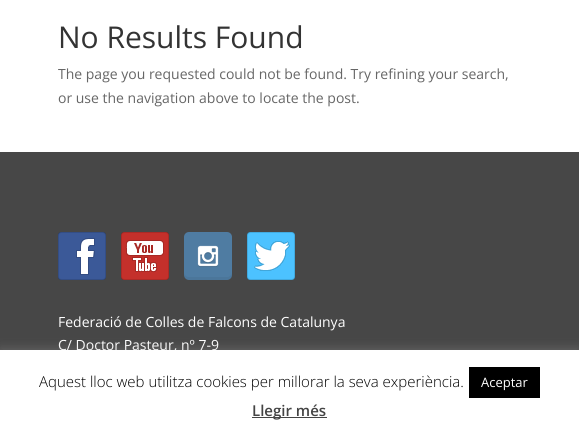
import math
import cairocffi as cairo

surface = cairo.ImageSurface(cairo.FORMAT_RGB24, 579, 435)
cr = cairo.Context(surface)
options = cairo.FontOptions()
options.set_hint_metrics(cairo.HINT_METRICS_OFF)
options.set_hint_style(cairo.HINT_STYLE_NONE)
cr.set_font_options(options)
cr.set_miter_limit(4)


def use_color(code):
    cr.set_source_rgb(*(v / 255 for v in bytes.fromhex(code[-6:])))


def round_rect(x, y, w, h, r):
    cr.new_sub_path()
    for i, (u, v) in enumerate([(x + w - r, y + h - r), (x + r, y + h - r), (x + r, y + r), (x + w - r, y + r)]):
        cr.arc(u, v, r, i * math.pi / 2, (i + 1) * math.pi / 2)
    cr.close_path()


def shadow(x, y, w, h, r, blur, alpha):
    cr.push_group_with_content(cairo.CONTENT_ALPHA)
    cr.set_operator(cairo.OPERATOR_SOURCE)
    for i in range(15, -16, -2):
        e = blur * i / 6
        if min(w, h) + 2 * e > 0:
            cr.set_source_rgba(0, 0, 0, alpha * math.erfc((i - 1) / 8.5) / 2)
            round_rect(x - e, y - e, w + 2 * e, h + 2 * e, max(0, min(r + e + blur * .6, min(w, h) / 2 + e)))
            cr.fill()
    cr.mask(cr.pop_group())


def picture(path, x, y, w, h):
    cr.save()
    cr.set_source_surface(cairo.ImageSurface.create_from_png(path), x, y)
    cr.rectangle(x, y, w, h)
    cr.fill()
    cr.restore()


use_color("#ffffff")
cr.paint()
cr.select_font_face("Open Sans")
cr.set_font_size(30)
use_color("#333333")
cr.move_to(58, 48)
cr.show_text("No Results Found")
cr.set_font_size(14)
use_color("#666666")
cr.move_to(58, 79)
cr.show_text("The page you requested could not be found. Try refining your search,")
cr.move_to(58, 103)
cr.show_text("or use the navigation above to locate the post.")
use_color("#474747")
cr.rectangle(0, 152, 579, 198)
cr.fill()
picture("img1.png", 58, 232, 48, 48)
picture("img2.png", 121, 232, 48, 48)
picture("img3.png", 184, 232, 48, 48)
picture("img4.png", 247, 232, 48, 48)
use_color("#ffffff")
cr.move_to(58, 327)
cr.show_text("Federació de Colles de Falcons de Catalunya")
cr.move_to(58, 350)
cr.show_text("C/ Doctor Pasteur, nº 7-9")
use_color("#acabab")
shadow(0, 349, 579, 85, 0, 5, 0.3)
use_color("#ffffff")
cr.rectangle(0, 350, 579, 85)
cr.fill()
cr.select_font_face("Open Sans Light")
cr.set_font_size(15)
use_color("#000000")
cr.move_to(39, 387)
cr.show_text("Aquest lloc web utilitza cookies per millorar la seva experiència.")
cr.rectangle(469, 367, 71, 31)
cr.fill()
cr.select_font_face("Open Sans")
cr.set_font_size(13)
use_color("#ffffff")
cr.move_to(481, 387)
cr.show_text("Aceptar")
use_color("#444444")
cr.rectangle(252, 417, 75, 1)
cr.fill()
cr.select_font_face("Open Sans SemiBold")
cr.set_font_size(15)
cr.move_to(252, 416)
cr.show_text("Llegir més")
surface.write_to_png("result.png")
